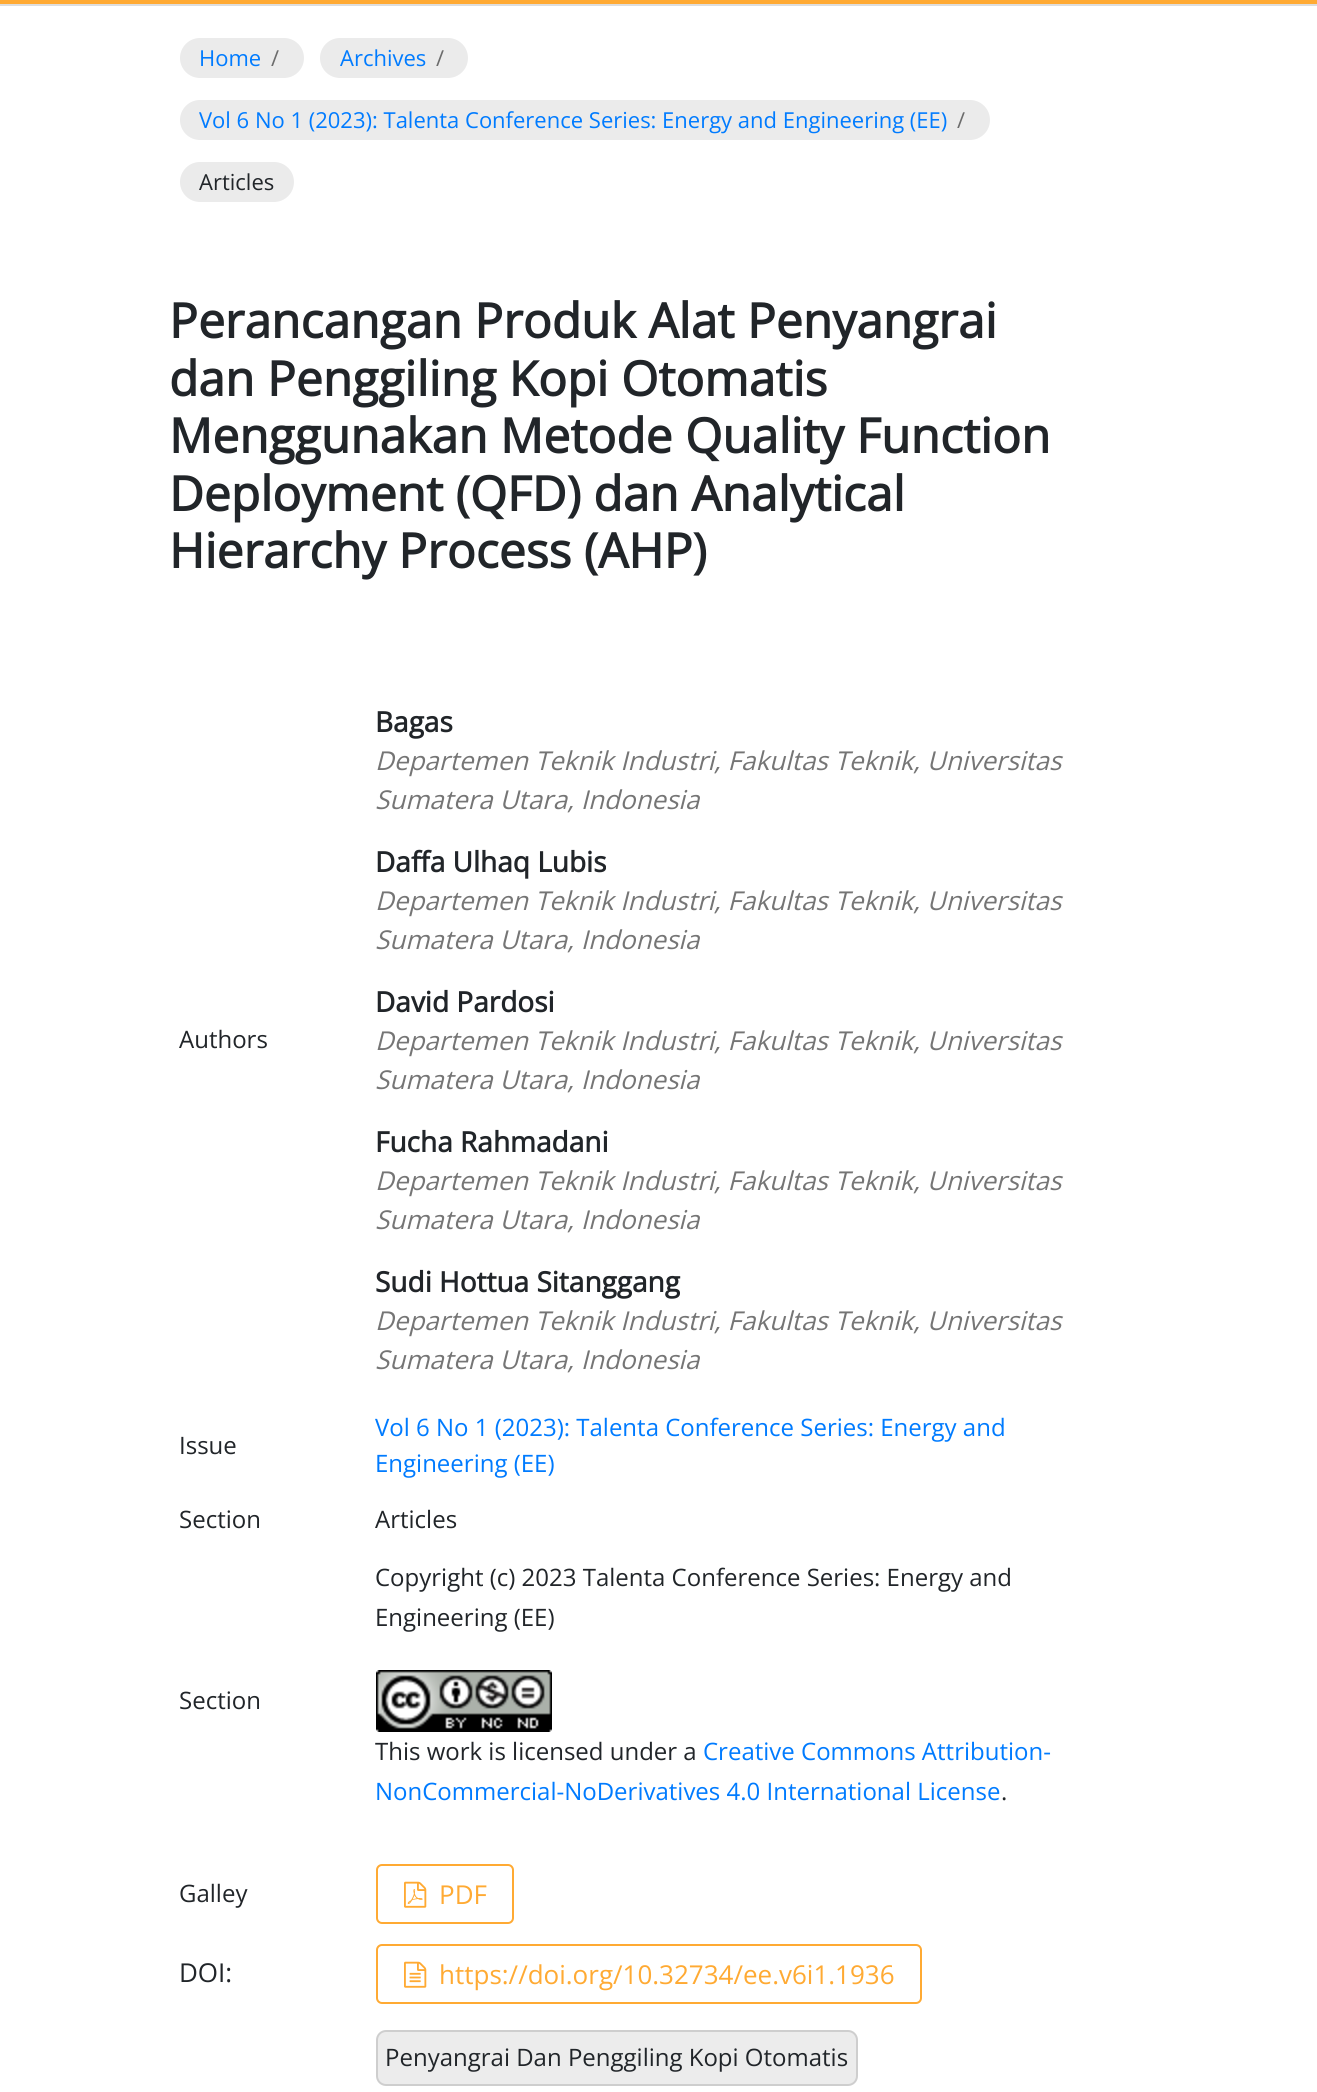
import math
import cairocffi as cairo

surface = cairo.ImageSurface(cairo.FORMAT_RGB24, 1317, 2092)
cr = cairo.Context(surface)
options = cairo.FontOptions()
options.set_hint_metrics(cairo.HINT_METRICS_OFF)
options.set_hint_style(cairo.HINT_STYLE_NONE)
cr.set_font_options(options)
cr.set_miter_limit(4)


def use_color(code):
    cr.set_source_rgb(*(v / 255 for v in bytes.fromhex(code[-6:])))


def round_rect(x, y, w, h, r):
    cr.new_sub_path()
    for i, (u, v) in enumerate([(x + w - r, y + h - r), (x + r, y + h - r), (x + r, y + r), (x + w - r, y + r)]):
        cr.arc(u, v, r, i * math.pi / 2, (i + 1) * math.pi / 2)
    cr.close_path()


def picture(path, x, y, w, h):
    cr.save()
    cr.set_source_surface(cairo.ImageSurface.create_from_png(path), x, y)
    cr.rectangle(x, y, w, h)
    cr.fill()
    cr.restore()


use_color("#ffffff")
cr.paint()
use_color("#ffaa33")
cr.rectangle(0, 0, 1317, 4)
cr.fill()
use_color("#dddddd")
cr.rectangle(0, 4, 1317, 2)
cr.fill()
use_color("#ebebeb")
round_rect(180, 38, 124, 40, 20)
cr.fill()
cr.select_font_face("Open Sans")
cr.set_font_size(22)
use_color("#007bff")
cr.move_to(199, 66)
cr.show_text("Home")
use_color("#6c6c6c")
cr.move_to(271, 66)
cr.show_text("/")
use_color("#ebebeb")
round_rect(320, 38, 148, 40, 20)
cr.fill()
use_color("#007bff")
cr.move_to(340, 66)
cr.show_text("Archives")
use_color("#6c6c6c")
cr.move_to(436, 66)
cr.show_text("/")
use_color("#ebebeb")
round_rect(180, 100, 810, 40, 20)
cr.fill()
use_color("#007bff")
cr.move_to(199, 128)
cr.show_text("Vol 6 No 1 (2023): Talenta Conference Series: Energy and Engineering (EE)")
use_color("#6c6c6c")
cr.move_to(957, 128)
cr.show_text("/")
use_color("#ebebeb")
round_rect(180, 162, 114, 40, 20)
cr.fill()
use_color("#212529")
cr.move_to(199, 190)
cr.show_text("Articles")
cr.select_font_face("Open Sans", cairo.FONT_SLANT_NORMAL, cairo.FONT_WEIGHT_BOLD)
cr.set_font_size(48)
cr.move_to(169, 338)
cr.show_text("Perancangan Produk Alat Penyangrai")
cr.move_to(169, 396)
cr.show_text("dan Penggiling Kopi Otomatis")
cr.move_to(169, 453)
cr.show_text("Menggunakan Metode Quality Function")
cr.move_to(169, 511)
cr.show_text("Deployment (QFD) dan Analytical")
cr.move_to(169, 568)
cr.show_text("Hierarchy Process (AHP)")
cr.select_font_face("Open Sans")
cr.set_font_size(24)
cr.move_to(179, 1048)
cr.show_text("Authors")
cr.select_font_face("Open Sans", cairo.FONT_SLANT_NORMAL, cairo.FONT_WEIGHT_BOLD)
cr.set_font_size(28)
cr.move_to(375, 732)
cr.show_text("Bagas")
cr.select_font_face("Open Sans", cairo.FONT_SLANT_ITALIC)
cr.set_font_size(26)
use_color("#757575")
cr.move_to(375, 770)
cr.show_text("Departemen Teknik Industri, Fakultas Teknik, Universitas")
cr.move_to(375, 809)
cr.show_text("Sumatera Utara, Indonesia")
cr.select_font_face("Open Sans", cairo.FONT_SLANT_NORMAL, cairo.FONT_WEIGHT_BOLD)
cr.set_font_size(28)
use_color("#212529")
cr.move_to(375, 872)
cr.show_text("Daffa Ulhaq Lubis")
cr.select_font_face("Open Sans", cairo.FONT_SLANT_ITALIC)
cr.set_font_size(26)
use_color("#757575")
cr.move_to(375, 910)
cr.show_text("Departemen Teknik Industri, Fakultas Teknik, Universitas")
cr.move_to(375, 949)
cr.show_text("Sumatera Utara, Indonesia")
cr.select_font_face("Open Sans", cairo.FONT_SLANT_NORMAL, cairo.FONT_WEIGHT_BOLD)
cr.set_font_size(28)
use_color("#212529")
cr.move_to(375, 1012)
cr.show_text("David Pardosi")
cr.select_font_face("Open Sans", cairo.FONT_SLANT_ITALIC)
cr.set_font_size(26)
use_color("#757575")
cr.move_to(375, 1050)
cr.show_text("Departemen Teknik Industri, Fakultas Teknik, Universitas")
cr.move_to(375, 1089)
cr.show_text("Sumatera Utara, Indonesia")
cr.select_font_face("Open Sans", cairo.FONT_SLANT_NORMAL, cairo.FONT_WEIGHT_BOLD)
cr.set_font_size(28)
use_color("#212529")
cr.move_to(375, 1152)
cr.show_text("Fucha Rahmadani")
cr.select_font_face("Open Sans", cairo.FONT_SLANT_ITALIC)
cr.set_font_size(26)
use_color("#757575")
cr.move_to(375, 1190)
cr.show_text("Departemen Teknik Industri, Fakultas Teknik, Universitas")
cr.move_to(375, 1229)
cr.show_text("Sumatera Utara, Indonesia")
cr.select_font_face("Open Sans", cairo.FONT_SLANT_NORMAL, cairo.FONT_WEIGHT_BOLD)
cr.set_font_size(28)
use_color("#212529")
cr.move_to(375, 1292)
cr.show_text("Sudi Hottua Sitanggang")
cr.select_font_face("Open Sans", cairo.FONT_SLANT_ITALIC)
cr.set_font_size(26)
use_color("#757575")
cr.move_to(375, 1330)
cr.show_text("Departemen Teknik Industri, Fakultas Teknik, Universitas")
cr.move_to(375, 1369)
cr.show_text("Sumatera Utara, Indonesia")
cr.select_font_face("Open Sans")
cr.set_font_size(24)
use_color("#212529")
cr.move_to(179, 1454)
cr.show_text("Issue")
use_color("#007bff")
cr.move_to(375, 1436)
cr.show_text("Vol 6 No 1 (2023): Talenta Conference Series: Energy and")
cr.move_to(375, 1472)
cr.show_text("Engineering (EE)")
use_color("#212529")
cr.move_to(179, 1528)
cr.show_text("Section")
cr.move_to(375, 1528)
cr.show_text("Articles")
cr.move_to(179, 1709)
cr.show_text("Section")
cr.move_to(375, 1586)
cr.show_text("Copyright (c) 2023 Talenta Conference Series: Energy and")
cr.move_to(375, 1626)
cr.show_text("Engineering (EE)")
picture("img1.png", 376, 1670, 176, 62)
cr.move_to(375, 1760)
cr.show_text("This work is licensed under a")
use_color("#007bff")
cr.move_to(703, 1760)
cr.show_text("Creative Commons Attribution-")
cr.move_to(375, 1800)
cr.show_text("NonCommercial-NoDerivatives 4.0 International License")
use_color("#212529")
cr.move_to(1001, 1800)
cr.show_text(".")
cr.move_to(179, 1902)
cr.show_text("Galley")
round_rect(377, 1865, 136, 58, 5)
use_color("#ffaa33")
cr.stroke()
picture("img2.png", 404, 1881, 23, 27)
cr.set_font_size(26)
cr.move_to(439, 1904)
cr.show_text("PDF")
use_color("#212529")
cr.move_to(179, 1982)
cr.show_text("DOI:")
round_rect(377, 1945, 544, 58, 5)
use_color("#ffaa33")
cr.stroke()
picture("img3.png", 404, 1961, 23, 27)
cr.move_to(439, 1984)
cr.show_text("https://doi.org/10.32734/ee.v6i1.1936")
use_color("#ececec")
round_rect(377, 2031, 480, 54, 9)
cr.fill_preserve()
use_color("#cecece")
cr.stroke()
cr.set_font_size(24)
use_color("#212529")
cr.move_to(385, 2066)
cr.show_text("Penyangrai Dan Penggiling Kopi Otomatis")
surface.write_to_png("result.png")
